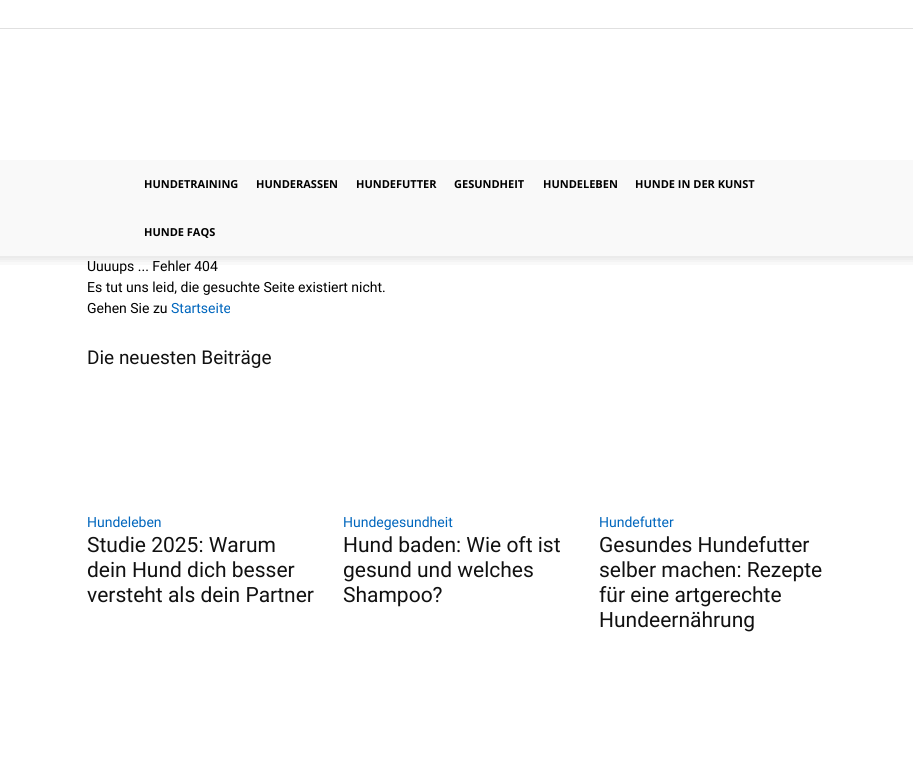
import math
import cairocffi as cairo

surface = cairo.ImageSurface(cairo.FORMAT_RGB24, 913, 765)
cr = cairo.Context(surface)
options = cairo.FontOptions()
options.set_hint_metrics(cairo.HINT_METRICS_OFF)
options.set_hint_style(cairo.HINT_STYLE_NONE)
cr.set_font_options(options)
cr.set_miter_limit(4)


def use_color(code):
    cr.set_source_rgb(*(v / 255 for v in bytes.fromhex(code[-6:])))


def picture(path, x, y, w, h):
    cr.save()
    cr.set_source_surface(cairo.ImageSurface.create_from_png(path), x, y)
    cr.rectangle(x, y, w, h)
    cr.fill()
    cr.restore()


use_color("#ffffff")
cr.paint()
use_color("#e0e0e0")
cr.rectangle(0, 28, 913, 1)
cr.fill()
use_color("#f9f9f9")
cr.rectangle(0, 160, 913, 96)
cr.fill()
cr.select_font_face("Open Sans", cairo.FONT_SLANT_NORMAL, cairo.FONT_WEIGHT_BOLD)
cr.set_font_size(11)
use_color("#000000")
cr.move_to(144, 188)
cr.show_text("HUNDETRAINING")
cr.move_to(256, 188)
cr.show_text("HUNDERASSEN")
cr.move_to(356, 188)
cr.show_text("HUNDEFUTTER")
cr.move_to(454, 188)
cr.show_text("GESUNDHEIT")
cr.move_to(543, 188)
cr.show_text("HUNDELEBEN")
cr.move_to(635, 188)
cr.show_text("HUNDE IN DER KUNST")
cr.move_to(144, 236)
cr.show_text("HUNDE FAQS")
cr.select_font_face("Roboto")
cr.set_font_size(14)
cr.move_to(87, 271)
cr.show_text("Uuuups ... Fehler 404")
picture("img1.png", 0, 256, 913, 9)
cr.move_to(87, 292)
cr.show_text("Es tut uns leid, die gesuchte Seite existiert nicht.")
cr.move_to(87, 313)
cr.show_text("Gehen Sie zu")
use_color("#0066bd")
cr.move_to(171, 313)
cr.show_text("Startseite")
cr.set_font_size(19)
use_color("#111111")
cr.move_to(87, 364)
cr.show_text("Die neuesten Beiträge")
cr.set_font_size(14)
use_color("#0066bd")
cr.move_to(87, 527)
cr.show_text("Hundeleben")
cr.set_font_size(21)
use_color("#111111")
cr.move_to(87, 552)
cr.show_text("Studie 2025: Warum")
cr.move_to(87, 577)
cr.show_text("dein Hund dich besser")
cr.move_to(87, 602)
cr.show_text("versteht als dein Partner")
cr.set_font_size(14)
use_color("#0066bd")
cr.move_to(343, 527)
cr.show_text("Hundegesundheit")
cr.set_font_size(21)
use_color("#111111")
cr.move_to(343, 552)
cr.show_text("Hund baden: Wie oft ist")
cr.move_to(343, 577)
cr.show_text("gesund und welches")
cr.move_to(343, 602)
cr.show_text("Shampoo?")
cr.set_font_size(14)
use_color("#0066bd")
cr.move_to(599, 527)
cr.show_text("Hundefutter")
cr.set_font_size(21)
use_color("#111111")
cr.move_to(599, 552)
cr.show_text("Gesundes Hundefutter")
cr.move_to(599, 577)
cr.show_text("selber machen: Rezepte")
cr.move_to(599, 602)
cr.show_text("für eine artgerechte")
cr.move_to(599, 627)
cr.show_text("Hundeernährung")
surface.write_to_png("result.png")
